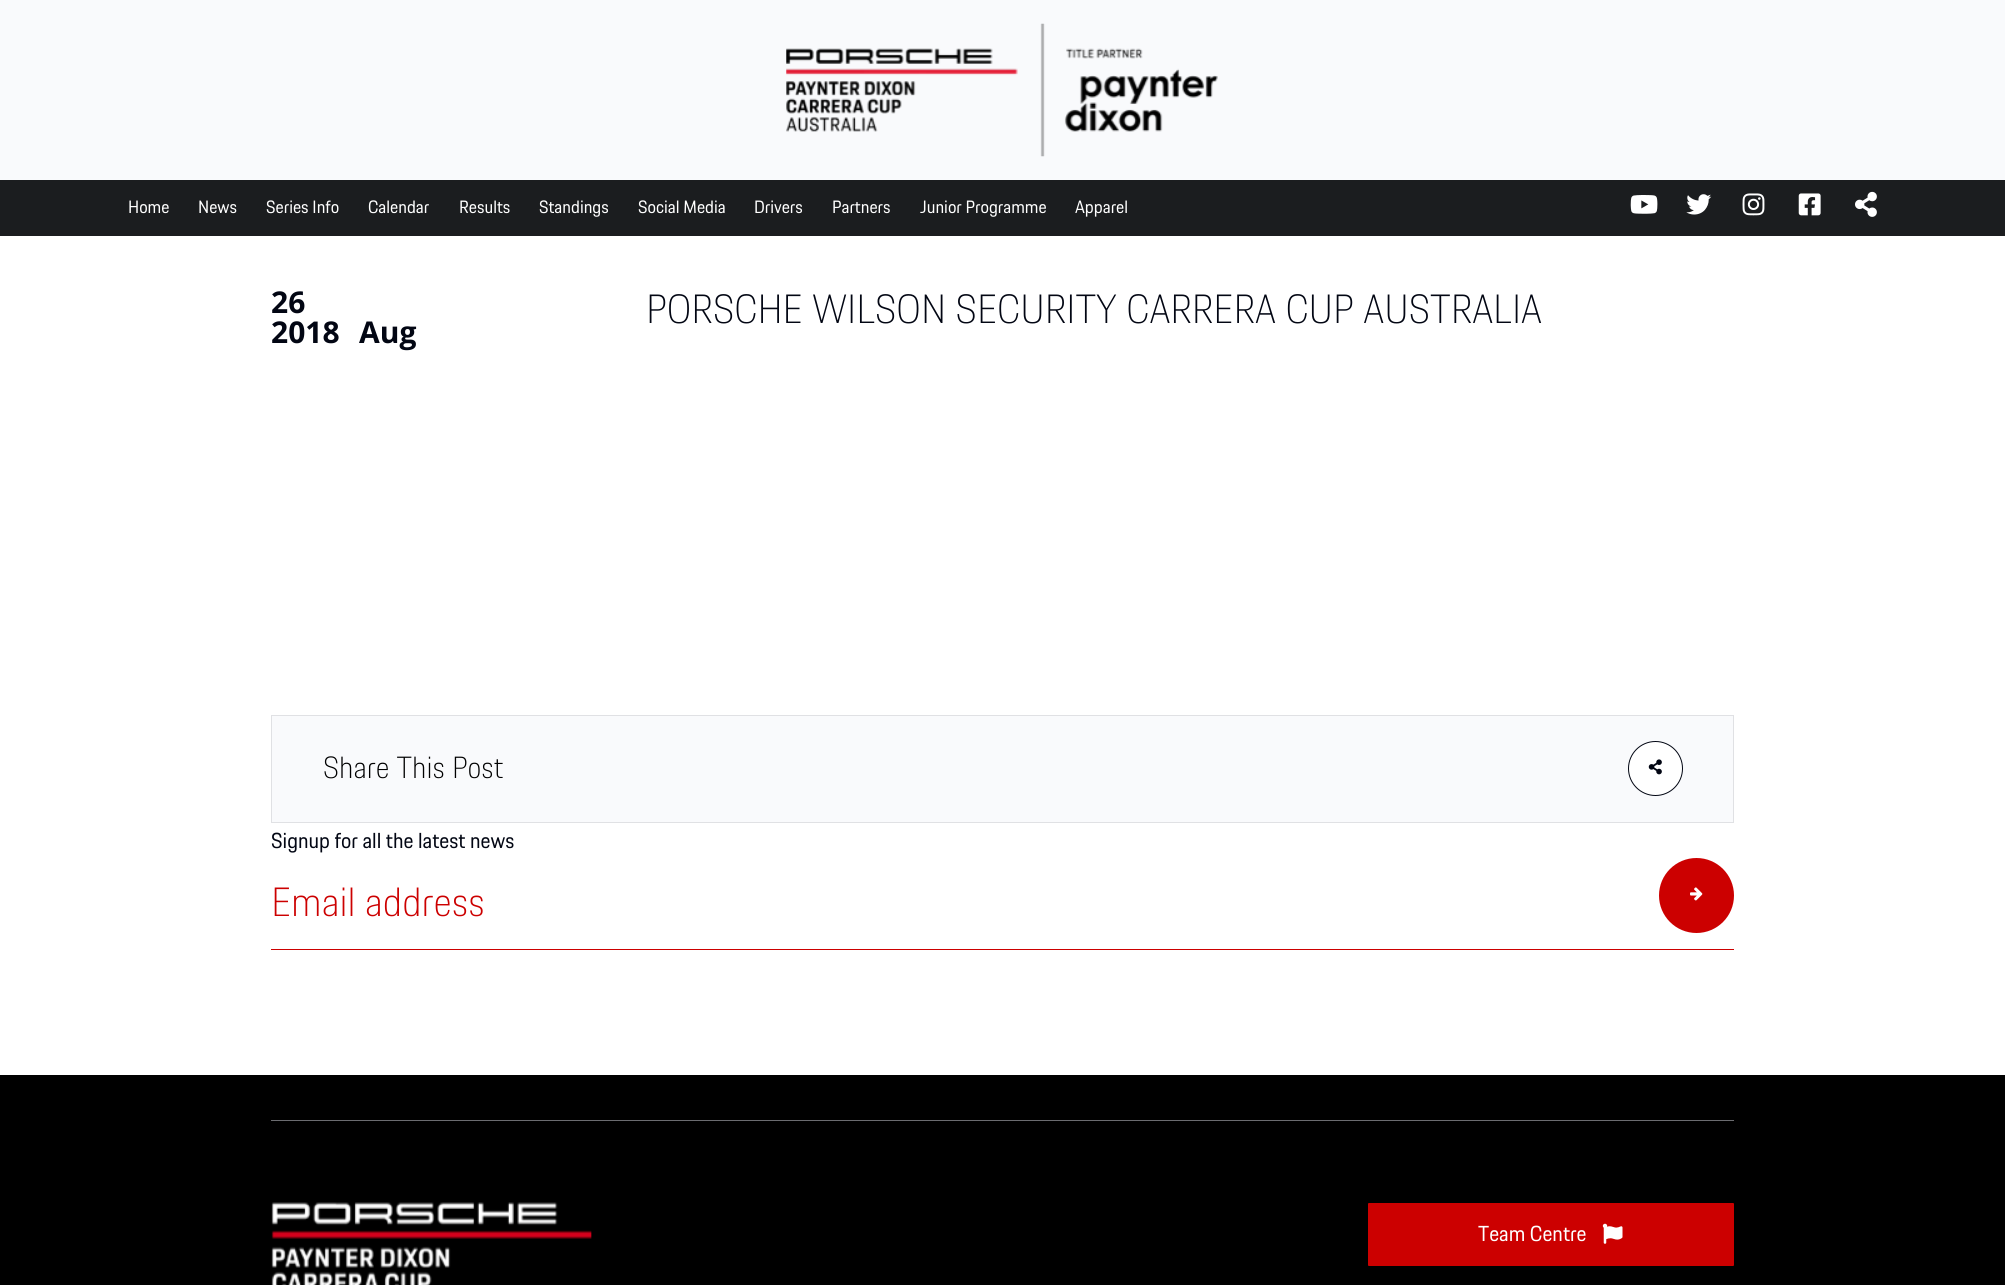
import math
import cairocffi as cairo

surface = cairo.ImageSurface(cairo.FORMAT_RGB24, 2005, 1285)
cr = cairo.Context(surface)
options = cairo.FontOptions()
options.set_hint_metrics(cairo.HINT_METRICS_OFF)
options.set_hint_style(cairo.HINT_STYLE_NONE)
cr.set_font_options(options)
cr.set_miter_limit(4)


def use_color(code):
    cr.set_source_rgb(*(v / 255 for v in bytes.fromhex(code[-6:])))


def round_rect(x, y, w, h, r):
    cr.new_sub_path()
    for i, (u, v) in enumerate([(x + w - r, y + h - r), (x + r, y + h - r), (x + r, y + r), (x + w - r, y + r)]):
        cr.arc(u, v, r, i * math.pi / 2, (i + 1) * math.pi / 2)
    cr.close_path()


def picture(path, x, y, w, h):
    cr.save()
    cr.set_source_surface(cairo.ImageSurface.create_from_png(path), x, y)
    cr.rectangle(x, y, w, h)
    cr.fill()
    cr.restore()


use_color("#ffffff")
cr.paint()
use_color("#f9fafc")
cr.rectangle(0, 0, 2005, 180)
cr.fill()
picture("img1.png", 786, 23, 432, 134)
use_color("#1b1d1f")
cr.rectangle(0, 180, 2005, 56)
cr.fill()
cr.select_font_face("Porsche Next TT")
cr.set_font_size(17.5)
use_color("#ffffff")
cr.move_to(128, 213)
cr.show_text("Home")
cr.move_to(198, 213)
cr.show_text("News")
cr.move_to(266, 213)
cr.show_text("Series Info")
cr.move_to(368, 213)
cr.show_text("Calendar")
cr.move_to(459, 213)
cr.show_text("Results")
cr.move_to(539, 213)
cr.show_text("Standings")
cr.move_to(638, 213)
cr.show_text("Social Media")
cr.move_to(754, 213)
cr.show_text("Drivers")
cr.move_to(832, 213)
cr.show_text("Partners")
cr.move_to(920, 213)
cr.show_text("Junior Programme")
cr.move_to(1075, 213)
cr.show_text("Apparel")
picture("img2.png", 1630, 195, 28, 19)
picture("img3.png", 1686, 194, 26, 21)
picture("img4.png", 1742, 193, 23, 23)
picture("img5.png", 1798, 193, 23, 23)
picture("img6.png", 1855, 191, 22, 26)
cr.select_font_face("Open Sans", cairo.FONT_SLANT_NORMAL, cairo.FONT_WEIGHT_BOLD)
cr.set_font_size(30)
use_color("#020613")
cr.move_to(271, 313)
cr.show_text("26")
cr.move_to(271, 343)
cr.show_text("2018")
cr.move_to(359, 343)
cr.show_text("Aug")
cr.select_font_face("Porsche Next TT Thin")
cr.set_font_size(40)
cr.move_to(646, 323)
cr.show_text("PORSCHE WILSON SECURITY CARRERA CUP AUSTRALIA")
use_color("#f9fafc")
cr.rectangle(271.5, 715.5, 1462, 107)
cr.fill_preserve()
use_color("#e0e1e4")
cr.set_line_width(1)
cr.stroke()
cr.set_font_size(30)
use_color("#000000")
cr.move_to(323, 778)
cr.show_text("Share This Post")
use_color("#ffffff")
cr.new_path()
cr.arc(1655.5, 768.5, 27, 0, 2 * math.pi)
cr.fill_preserve()
use_color("#020613")
cr.stroke()
picture("img7.png", 1648, 759, 14, 16)
use_color("#cc0000")
cr.rectangle(271, 949, 1463, 1)
cr.fill()
cr.select_font_face("Porsche Next TT")
cr.set_font_size(21.25)
use_color("#020613")
cr.move_to(271, 848)
cr.show_text("Signup for all the latest news")
cr.select_font_face("Porsche Next TT Thin")
cr.set_font_size(40)
use_color("#cc0000")
cr.move_to(271, 916)
cr.show_text("Email address")
cr.new_path()
cr.arc(1696.5, 895.5, 37.5, 0, 2 * math.pi)
cr.fill()
picture("img8.png", 1690, 887, 13, 14)
use_color("#000000")
cr.rectangle(0, 1075, 2005, 210)
cr.fill()
use_color("#6b6c70")
cr.rectangle(271, 1120, 1463, 1)
cr.fill()
picture("img9.png", 271, 1202, 321, 83)
use_color("#cc0000")
round_rect(1368.5, 1203.5, 365, 62, 0.5)
cr.fill_preserve()
cr.stroke()
cr.select_font_face("Porsche Next TT")
cr.set_font_size(21.25)
use_color("#ffffff")
cr.move_to(1478, 1241)
cr.show_text("Team Centre")
picture("img10.png", 1602, 1223, 21, 21)
surface.write_to_png("result.png")
